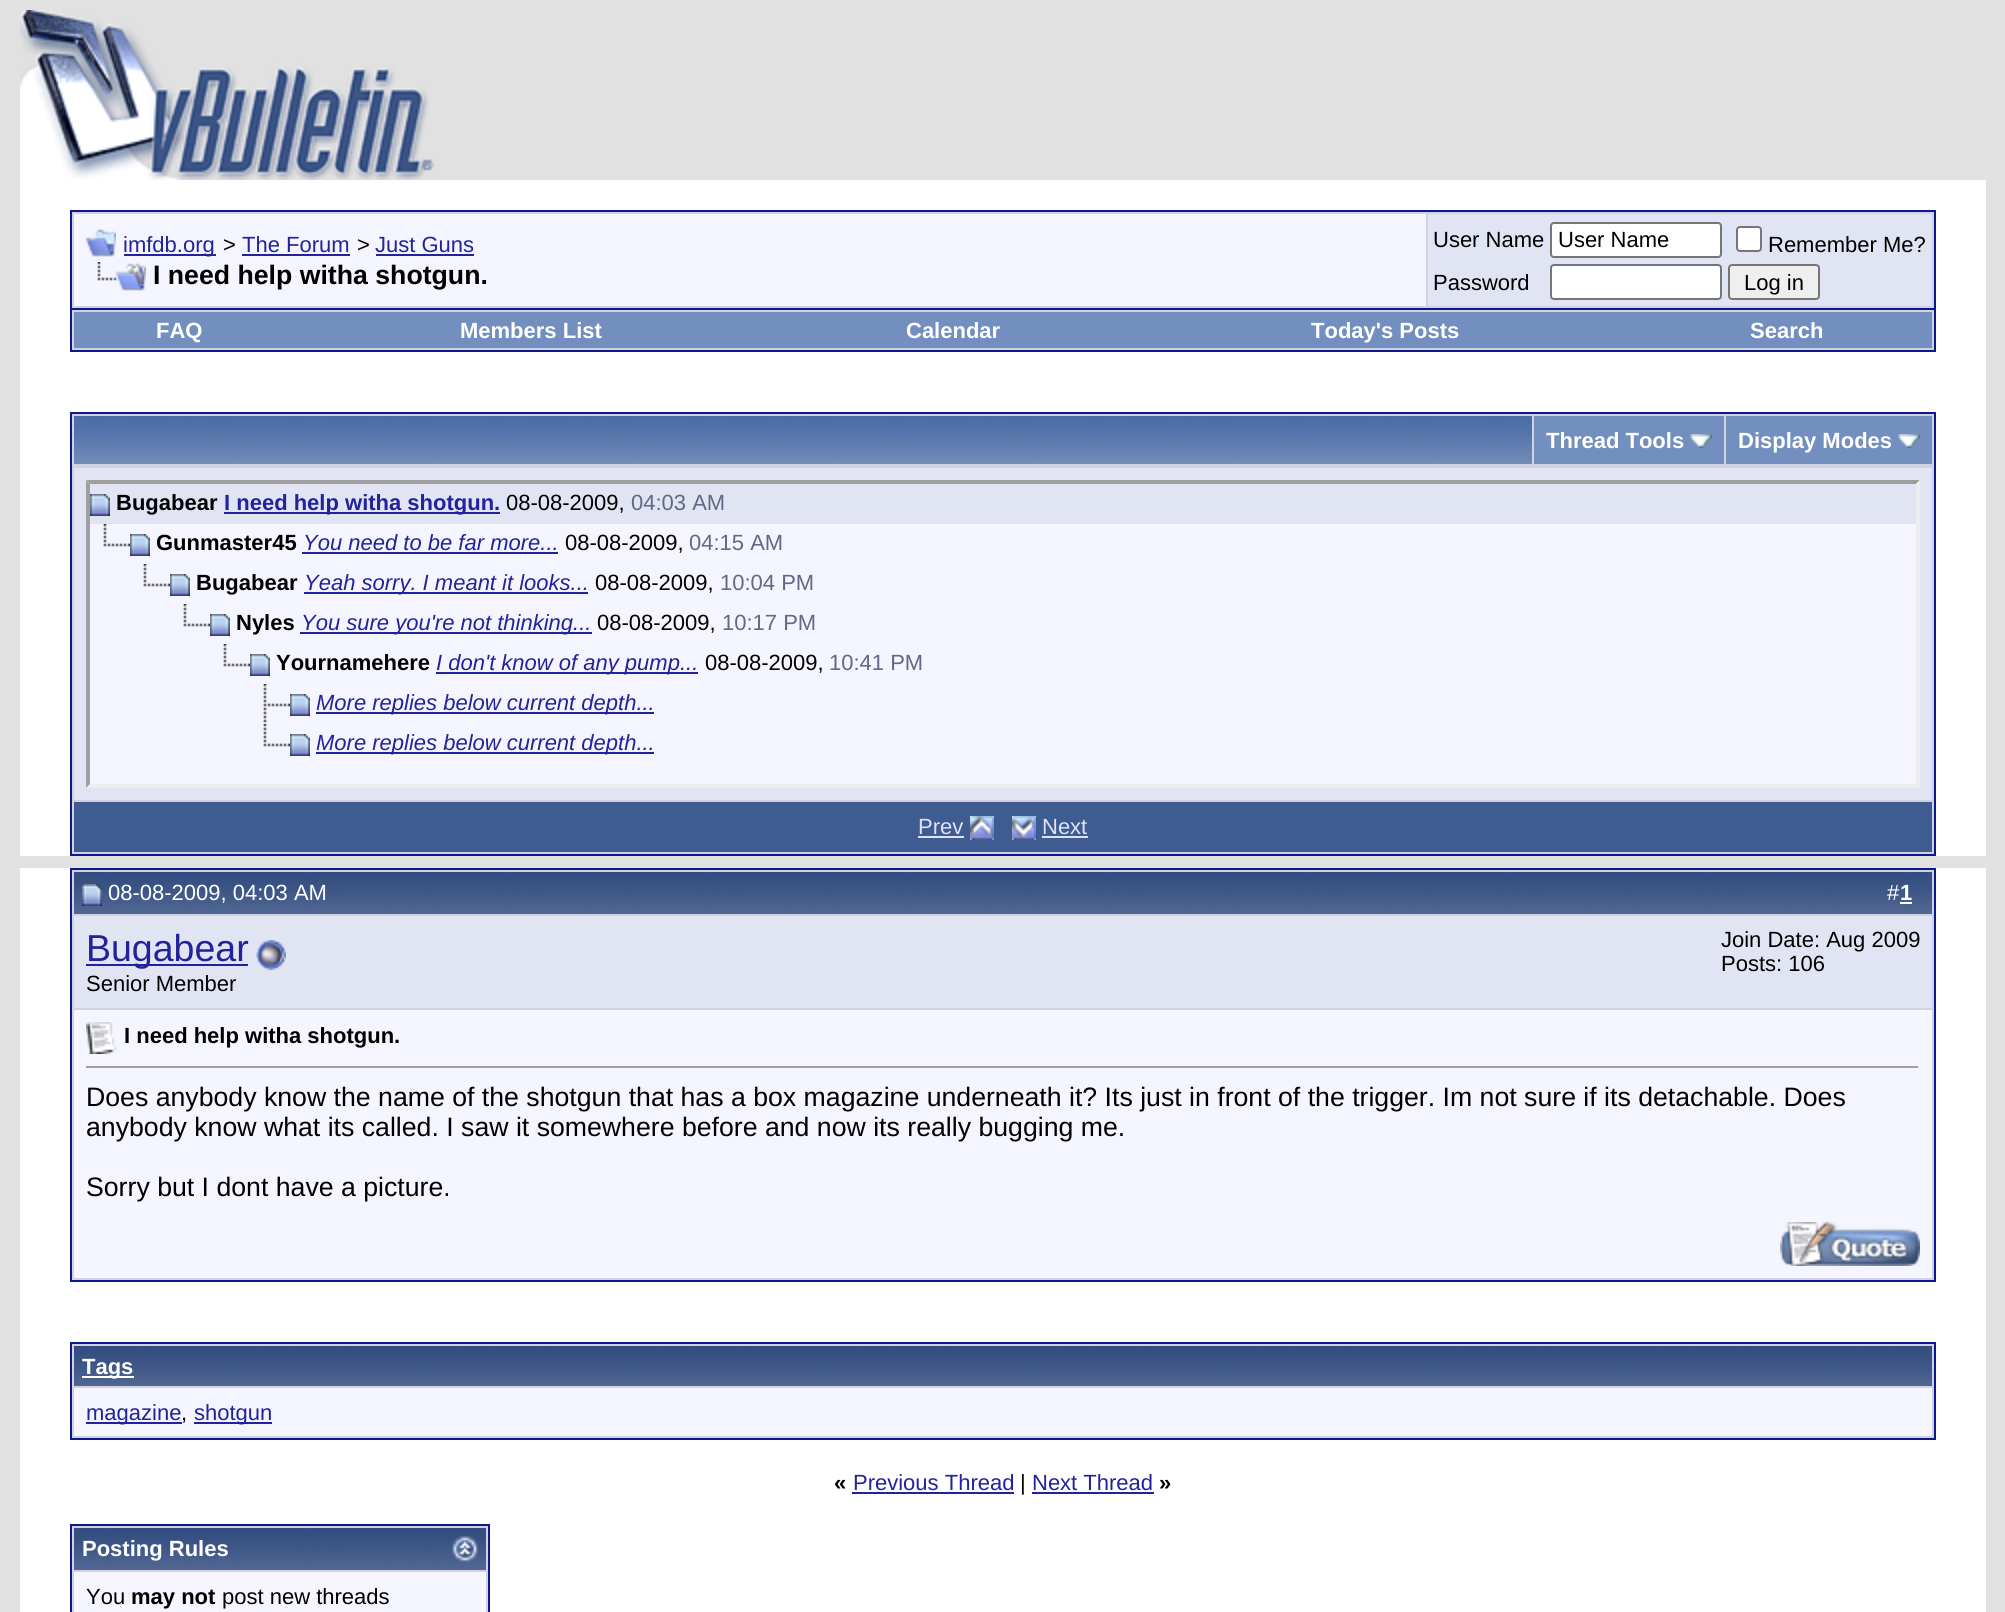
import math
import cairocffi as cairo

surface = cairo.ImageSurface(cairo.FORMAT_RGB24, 2005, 1612)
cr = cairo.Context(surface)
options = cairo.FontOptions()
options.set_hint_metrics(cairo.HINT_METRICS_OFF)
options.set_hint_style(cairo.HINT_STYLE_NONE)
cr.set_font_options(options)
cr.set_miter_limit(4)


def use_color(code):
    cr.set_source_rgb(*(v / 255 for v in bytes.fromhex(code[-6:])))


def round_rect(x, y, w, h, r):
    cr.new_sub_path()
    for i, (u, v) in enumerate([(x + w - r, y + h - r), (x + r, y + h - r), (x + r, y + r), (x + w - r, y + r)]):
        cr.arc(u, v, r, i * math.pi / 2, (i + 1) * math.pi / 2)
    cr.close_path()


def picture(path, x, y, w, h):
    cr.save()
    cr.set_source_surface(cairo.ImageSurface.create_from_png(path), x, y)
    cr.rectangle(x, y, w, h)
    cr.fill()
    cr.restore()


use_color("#e1e1e2")
cr.paint()
picture("img1.png", 20, 10, 415, 170)
use_color("#ffffff")
cr.rectangle(20, 180, 1966, 676)
cr.fill()
use_color("#d1d1e1")
cr.rectangle(71, 211, 1864, 98)
cr.fill_preserve()
use_color("#0b198c")
cr.stroke()
use_color("#f5f5ff")
cr.rectangle(74, 214, 1352, 92)
cr.fill()
picture("img2.png", 86, 229, 30, 28)
use_color("#22229c")
cr.rectangle(124, 254, 92, 2)
cr.fill()
cr.select_font_face("Liberation Sans")
cr.set_font_size(22)
cr.move_to(123, 252)
cr.show_text("imfdb.org")
use_color("#000000")
cr.move_to(223, 252)
cr.show_text(">")
use_color("#22229c")
cr.move_to(242, 252)
cr.show_text("The Forum")
cr.rectangle(242, 254, 108, 2)
cr.fill()
use_color("#000000")
cr.move_to(357, 252)
cr.show_text(">")
use_color("#22229c")
cr.move_to(375, 252)
cr.show_text("Just Guns")
cr.rectangle(376, 254, 98, 2)
cr.fill()
picture("img3.png", 97, 262, 49, 29)
cr.select_font_face("Liberation Sans", cairo.FONT_SLANT_NORMAL, cairo.FONT_WEIGHT_BOLD)
cr.set_font_size(26.67)
use_color("#000000")
cr.move_to(153, 284)
cr.show_text("I need help witha shotgun.")
use_color("#e1e4f2")
cr.rectangle(1428, 214, 504, 92)
cr.fill()
cr.select_font_face("Liberation Sans")
cr.set_font_size(22)
use_color("#000000")
cr.move_to(1433, 247)
cr.show_text("User Name")
use_color("#ffffff")
round_rect(1551, 223, 170, 34, 3)
cr.fill_preserve()
use_color("#767676")
cr.stroke()
use_color("#000000")
cr.move_to(1558, 247)
cr.show_text("User Name")
use_color("#ffffff")
round_rect(1737, 227, 24, 24, 3)
cr.fill_preserve()
use_color("#767676")
cr.stroke()
use_color("#000000")
cr.move_to(1768, 252)
cr.show_text("Remember Me?")
cr.move_to(1433, 290)
cr.show_text("Password")
use_color("#ffffff")
round_rect(1551, 265, 170, 34, 3)
cr.fill_preserve()
use_color("#767676")
cr.stroke()
use_color("#efefef")
round_rect(1729, 265, 90, 34, 3)
cr.fill_preserve()
use_color("#767676")
cr.stroke()
use_color("#000000")
cr.move_to(1744, 290)
cr.show_text("Log in")
use_color("#d1d1e1")
cr.rectangle(72, 310, 1862, 40)
cr.fill()
use_color("#0b198c")
cr.rectangle(1934, 310, 2, 42)
cr.fill()
cr.rectangle(70, 350, 1866, 2)
cr.fill()
cr.rectangle(70, 310, 2, 42)
cr.fill()
use_color("#738fbf")
cr.rectangle(74, 312, 1858, 36)
cr.fill()
cr.select_font_face("Liberation Sans", cairo.FONT_SLANT_NORMAL, cairo.FONT_WEIGHT_BOLD)
use_color("#ffffff")
cr.move_to(156, 338)
cr.show_text("FAQ")
cr.move_to(460, 338)
cr.show_text("Members List")
cr.move_to(906, 338)
cr.show_text("Calendar")
cr.move_to(1311, 338)
cr.show_text("Today's Posts")
cr.move_to(1750, 338)
cr.show_text("Search")
use_color("#d1d1e1")
cr.rectangle(72, 414, 1862, 440)
cr.fill()
use_color("#0b198c")
cr.rectangle(70, 412, 1866, 2)
cr.fill()
cr.rectangle(1934, 412, 2, 444)
cr.fill()
cr.rectangle(70, 412, 2, 54)
cr.fill()
picture("img4.png", 74, 416, 1458, 48)
use_color("#738fbf")
cr.rectangle(1534, 416, 190, 48)
cr.fill()
use_color("#ffffff")
cr.move_to(1546, 448)
cr.show_text("Thread Tools")
picture("img5.png", 1690, 434, 22, 14)
use_color("#738fbf")
cr.rectangle(1726, 416, 206, 48)
cr.fill()
use_color("#ffffff")
cr.move_to(1738, 448)
cr.show_text("Display Modes")
picture("img5.png", 1898, 434, 22, 14)
use_color("#0b198c")
cr.rectangle(70, 854, 1866, 2)
cr.fill()
cr.rectangle(70, 466, 2, 390)
cr.fill()
use_color("#e1e4f2")
cr.rectangle(74, 468, 1858, 332)
cr.fill()
use_color("#f5f5ff")
cr.rectangle(86, 480, 1834, 308)
cr.fill()
use_color("#9f9f9f")
cr.new_path()
cr.move_to(86, 480)
cr.line_to(1920, 480)
cr.line_to(1916, 484)
cr.line_to(90, 484)
cr.close_path()
cr.fill()
use_color("#eeeeee")
cr.new_path()
cr.move_to(1920, 480)
cr.line_to(1920, 788)
cr.line_to(1916, 784)
cr.line_to(1916, 484)
cr.close_path()
cr.fill()
cr.new_path()
cr.move_to(1920, 788)
cr.line_to(86, 788)
cr.line_to(90, 784)
cr.line_to(1916, 784)
cr.close_path()
cr.fill()
use_color("#9f9f9f")
cr.new_path()
cr.move_to(86, 788)
cr.line_to(86, 480)
cr.line_to(90, 484)
cr.line_to(90, 784)
cr.close_path()
cr.fill()
use_color("#e1e4f2")
cr.rectangle(90, 484, 1826, 40)
cr.fill()
picture("img6.png", 90, 494, 20, 22)
use_color("#000000")
cr.move_to(116, 510)
cr.show_text("Bugabear")
use_color("#22229c")
cr.rectangle(224, 512, 276, 2)
cr.fill()
cr.move_to(224, 510)
cr.show_text("I need help witha shotgun.")
cr.select_font_face("Liberation Sans")
use_color("#000000")
cr.move_to(506, 510)
cr.show_text("08-08-2009,")
use_color("#666686")
cr.move_to(631, 510)
cr.show_text("04:03 AM")
picture("img7.png", 103, 524, 27, 23)
picture("img8.png", 130, 534, 20, 22)
cr.select_font_face("Liberation Sans", cairo.FONT_SLANT_NORMAL, cairo.FONT_WEIGHT_BOLD)
use_color("#000000")
cr.move_to(156, 550)
cr.show_text("Gunmaster45")
cr.select_font_face("Liberation Sans", cairo.FONT_SLANT_ITALIC)
use_color("#22229c")
cr.move_to(303, 550)
cr.show_text("You need to be far more...")
cr.rectangle(302, 552, 256, 2)
cr.fill()
cr.select_font_face("Liberation Sans")
use_color("#000000")
cr.move_to(565, 550)
cr.show_text("08-08-2009,")
use_color("#666686")
cr.move_to(689, 550)
cr.show_text("04:15 AM")
picture("img7.png", 143, 564, 27, 23)
picture("img8.png", 170, 574, 20, 22)
cr.select_font_face("Liberation Sans", cairo.FONT_SLANT_NORMAL, cairo.FONT_WEIGHT_BOLD)
use_color("#000000")
cr.move_to(196, 590)
cr.show_text("Bugabear")
use_color("#22229c")
cr.rectangle(304, 592, 284, 2)
cr.fill()
cr.select_font_face("Liberation Sans", cairo.FONT_SLANT_ITALIC)
cr.move_to(304, 590)
cr.show_text("Yeah sorry. I meant it looks...")
cr.select_font_face("Liberation Sans")
use_color("#000000")
cr.move_to(595, 590)
cr.show_text("08-08-2009,")
use_color("#666686")
cr.move_to(720, 590)
cr.show_text("10:04 PM")
picture("img7.png", 183, 604, 27, 23)
picture("img8.png", 210, 614, 20, 22)
cr.select_font_face("Liberation Sans", cairo.FONT_SLANT_NORMAL, cairo.FONT_WEIGHT_BOLD)
use_color("#000000")
cr.move_to(236, 630)
cr.show_text("Nyles")
use_color("#22229c")
cr.rectangle(300, 632, 292, 2)
cr.fill()
cr.select_font_face("Liberation Sans", cairo.FONT_SLANT_ITALIC)
cr.move_to(301, 630)
cr.show_text("You sure you're not thinking...")
cr.select_font_face("Liberation Sans")
use_color("#000000")
cr.move_to(597, 630)
cr.show_text("08-08-2009,")
use_color("#666686")
cr.move_to(722, 630)
cr.show_text("10:17 PM")
picture("img7.png", 223, 644, 27, 23)
picture("img8.png", 250, 654, 20, 22)
cr.select_font_face("Liberation Sans", cairo.FONT_SLANT_NORMAL, cairo.FONT_WEIGHT_BOLD)
use_color("#000000")
cr.move_to(276, 670)
cr.show_text("Yournamehere")
use_color("#22229c")
cr.rectangle(436, 672, 262, 2)
cr.fill()
cr.select_font_face("Liberation Sans", cairo.FONT_SLANT_ITALIC)
cr.move_to(436, 670)
cr.show_text("I don't know of any pump...")
cr.select_font_face("Liberation Sans")
use_color("#000000")
cr.move_to(705, 670)
cr.show_text("08-08-2009,")
use_color("#666686")
cr.move_to(829, 670)
cr.show_text("10:41 PM")
picture("img9.png", 263, 684, 27, 39)
picture("img8.png", 290, 694, 20, 22)
use_color("#22229c")
cr.rectangle(316, 712, 338, 2)
cr.fill()
cr.select_font_face("Liberation Sans", cairo.FONT_SLANT_ITALIC)
cr.move_to(316, 710)
cr.show_text("More replies below current depth...")
picture("img7.png", 263, 724, 27, 23)
picture("img8.png", 290, 734, 20, 22)
cr.rectangle(316, 752, 338, 2)
cr.fill()
cr.move_to(316, 750)
cr.show_text("More replies below current depth...")
use_color("#3e5c92")
cr.rectangle(74, 802, 1858, 50)
cr.fill()
cr.select_font_face("Liberation Sans")
use_color("#e0e0f6")
cr.move_to(918, 834)
cr.show_text("Prev")
cr.rectangle(918, 836, 46, 2)
cr.fill()
picture("img10.png", 970, 816, 24, 24)
picture("img11.png", 1012, 816, 24, 24)
cr.move_to(1042, 834)
cr.show_text("Next")
cr.rectangle(1042, 836, 46, 2)
cr.fill()
use_color("#ffffff")
cr.rectangle(20, 868, 1966, 744)
cr.fill()
use_color("#d1d1e1")
cr.rectangle(71, 869, 1864, 412)
cr.fill_preserve()
use_color("#0b198c")
cr.stroke()
picture("img12.png", 74, 872, 1858, 42)
picture("img13.png", 82, 884, 20, 22)
use_color("#ffffff")
cr.move_to(108, 900)
cr.show_text("08-08-2009, 04:03 AM")
cr.move_to(1887, 900)
cr.show_text("#")
cr.select_font_face("Liberation Sans", cairo.FONT_SLANT_NORMAL, cairo.FONT_WEIGHT_BOLD)
cr.move_to(1900, 900)
cr.show_text("1")
cr.rectangle(1900, 902, 12, 2)
cr.fill()
use_color("#e1e4f2")
cr.rectangle(74, 916, 1858, 92)
cr.fill()
use_color("#22229c")
cr.rectangle(86, 964, 162, 2)
cr.fill()
cr.select_font_face("Liberation Sans")
cr.set_font_size(37.5)
cr.move_to(86, 961)
cr.show_text("Bugabear")
picture("img14.png", 256, 940, 30, 30)
cr.set_font_size(22)
use_color("#000000")
cr.move_to(86, 991)
cr.show_text("Senior Member")
cr.move_to(1721, 947)
cr.show_text("Join Date: Aug 2009")
cr.move_to(1721, 971)
cr.show_text("Posts: 106")
use_color("#f5f5ff")
cr.rectangle(74, 1010, 1858, 268)
cr.fill()
picture("img15.png", 86, 1022, 31, 32)
cr.select_font_face("Liberation Sans", cairo.FONT_SLANT_NORMAL, cairo.FONT_WEIGHT_BOLD)
use_color("#000000")
cr.move_to(124, 1043)
cr.show_text("I need help witha shotgun.")
use_color("#9f9f9f")
cr.rectangle(86, 1066, 1834, 2)
cr.fill()
use_color("#eeeeee")
cr.rectangle(1918, 1066, 2, 2)
cr.fill()
cr.select_font_face("Liberation Sans")
cr.set_font_size(26.67)
use_color("#000000")
cr.move_to(86, 1106)
cr.show_text("Does anybody know the name of the shotgun that has a box magazine underneath it? Its just in front of the trigger. Im not sure if its detachable. Does")
cr.move_to(86, 1136)
cr.show_text("anybody know what its called. I saw it somewhere before and now its really bugging me.")
cr.move_to(86, 1196)
cr.show_text("Sorry but I dont have a picture.")
picture("img16.png", 1780, 1222, 140, 44)
use_color("#d1d1e1")
cr.rectangle(71, 1343, 1864, 96)
cr.fill_preserve()
use_color("#0b198c")
cr.stroke()
picture("img17.png", 74, 1346, 1858, 40)
use_color("#ffffff")
cr.rectangle(82, 1376, 52, 2)
cr.fill()
cr.select_font_face("Liberation Sans", cairo.FONT_SLANT_NORMAL, cairo.FONT_WEIGHT_BOLD)
cr.set_font_size(22)
cr.move_to(82, 1374)
cr.show_text("Tags")
use_color("#f5f5ff")
cr.rectangle(74, 1388, 1858, 48)
cr.fill()
use_color("#22229c")
cr.rectangle(86, 1422, 96, 2)
cr.fill()
cr.select_font_face("Liberation Sans")
cr.move_to(86, 1420)
cr.show_text("magazine")
use_color("#000000")
cr.move_to(181, 1420)
cr.show_text(",")
use_color("#22229c")
cr.rectangle(194, 1422, 78, 2)
cr.fill()
cr.move_to(194, 1420)
cr.show_text("shotgun")
cr.select_font_face("Liberation Sans", cairo.FONT_SLANT_NORMAL, cairo.FONT_WEIGHT_BOLD)
use_color("#000000")
cr.move_to(834, 1490)
cr.show_text("«")
cr.select_font_face("Liberation Sans")
use_color("#22229c")
cr.move_to(853, 1490)
cr.show_text("Previous Thread")
cr.rectangle(852, 1492, 162, 2)
cr.fill()
use_color("#000000")
cr.move_to(1020, 1490)
cr.show_text("|")
use_color("#22229c")
cr.move_to(1032, 1490)
cr.show_text("Next Thread")
cr.rectangle(1032, 1492, 122, 2)
cr.fill()
cr.select_font_face("Liberation Sans", cairo.FONT_SLANT_NORMAL, cairo.FONT_WEIGHT_BOLD)
use_color("#000000")
cr.move_to(1159, 1490)
cr.show_text("»")
use_color("#d1d1e1")
cr.rectangle(71, 1525, 418, 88)
cr.fill_preserve()
use_color("#0b198c")
cr.stroke()
picture("img18.png", 74, 1528, 412, 42)
use_color("#ffffff")
cr.move_to(82, 1556)
cr.show_text("Posting Rules")
picture("img19.png", 452, 1536, 26, 26)
use_color("#f5f5ff")
cr.rectangle(74, 1572, 412, 40)
cr.fill()
cr.select_font_face("Liberation Sans")
use_color("#000000")
cr.move_to(86, 1604)
cr.show_text("You")
cr.select_font_face("Liberation Sans", cairo.FONT_SLANT_NORMAL, cairo.FONT_WEIGHT_BOLD)
cr.move_to(131, 1604)
cr.show_text("may not")
cr.select_font_face("Liberation Sans")
cr.move_to(222, 1604)
cr.show_text("post new threads")
surface.write_to_png("result.png")
